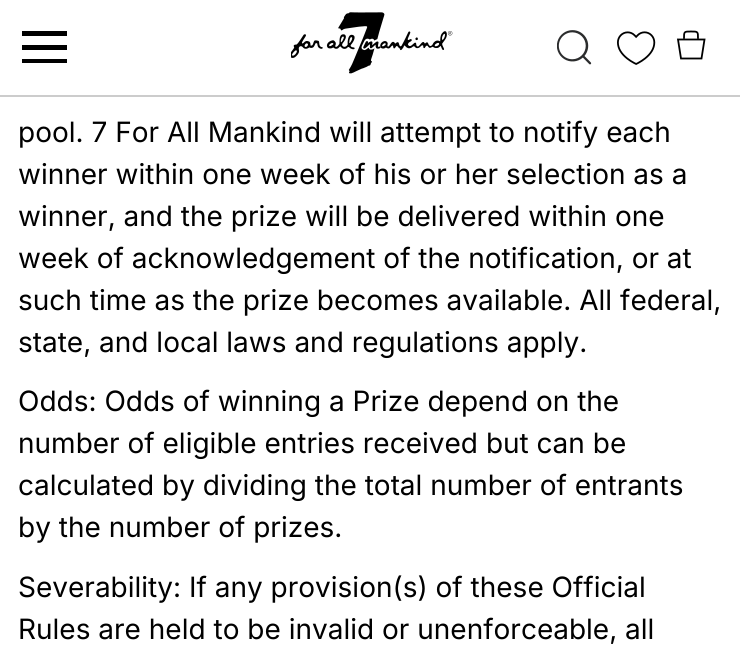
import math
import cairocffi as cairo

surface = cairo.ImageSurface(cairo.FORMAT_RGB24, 740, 655)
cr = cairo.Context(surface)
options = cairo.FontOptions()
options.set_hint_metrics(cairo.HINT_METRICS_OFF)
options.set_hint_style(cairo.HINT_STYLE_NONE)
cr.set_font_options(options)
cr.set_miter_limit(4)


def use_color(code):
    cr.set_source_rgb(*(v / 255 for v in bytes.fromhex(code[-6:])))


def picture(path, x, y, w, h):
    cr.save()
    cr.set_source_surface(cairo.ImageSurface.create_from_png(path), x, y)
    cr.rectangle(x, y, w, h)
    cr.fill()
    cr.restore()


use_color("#ffffff")
cr.paint()
use_color("#cccccc")
cr.rectangle(0, 95, 740, 2)
cr.fill()
use_color("#000000")
cr.new_path()
cr.move_to(22, 45)
cr.line_to(67, 45)
cr.line_to(67, 50)
cr.line_to(22, 50)
cr.close_path()
cr.move_to(22, 31)
cr.line_to(67, 31)
cr.line_to(67, 36)
cr.line_to(22, 36)
cr.close_path()
cr.move_to(22, 59)
cr.line_to(67, 59)
cr.line_to(67, 63)
cr.line_to(22, 63)
cr.close_path()
cr.fill()
picture("img1.png", 291, 12, 162, 62)
picture("img2.png", 557, 30, 35, 35)
picture("img3.png", 617, 31, 39, 34)
cr.new_path()
cr.move_to(704.5, 39.5)
cr.line_to(701.5, 58.5)
cr.line_to(681, 58.5)
cr.line_to(678, 39.5)
cr.close_path()
cr.move_to(684, 38.5)
cr.curve_to(684, 31.5, 684, 31.5, 691, 31.5)
cr.curve_to(698, 31.5, 698, 31.5, 698, 38.5)
cr.set_line_width(1.8)
cr.stroke()
cr.select_font_face("Inter")
cr.set_font_size(28)
cr.move_to(18, 142)
cr.show_text("pool. 7 For All Mankind will attempt to notify each")
cr.move_to(18, 184)
cr.show_text("winner within one week of his or her selection as a")
cr.move_to(18, 226)
cr.show_text("winner, and the prize will be delivered within one")
cr.move_to(18, 268)
cr.show_text("week of acknowledgement of the notification, or at")
cr.move_to(18, 310)
cr.show_text("such time as the prize becomes available. All federal,")
cr.move_to(18, 352)
cr.show_text("state, and local laws and regulations apply.")
cr.move_to(18, 411)
cr.show_text("Odds: Odds of winning a Prize depend on the")
cr.move_to(18, 453)
cr.show_text("number of eligible entries received but can be")
cr.move_to(18, 495)
cr.show_text("calculated by dividing the total number of entrants")
cr.move_to(18, 537)
cr.show_text("by the number of prizes.")
cr.move_to(18, 597)
cr.show_text("Severability: If any provision(s) of these Official")
cr.move_to(18, 639)
cr.show_text("Rules are held to be invalid or unenforceable, all")
surface.write_to_png("result.png")
